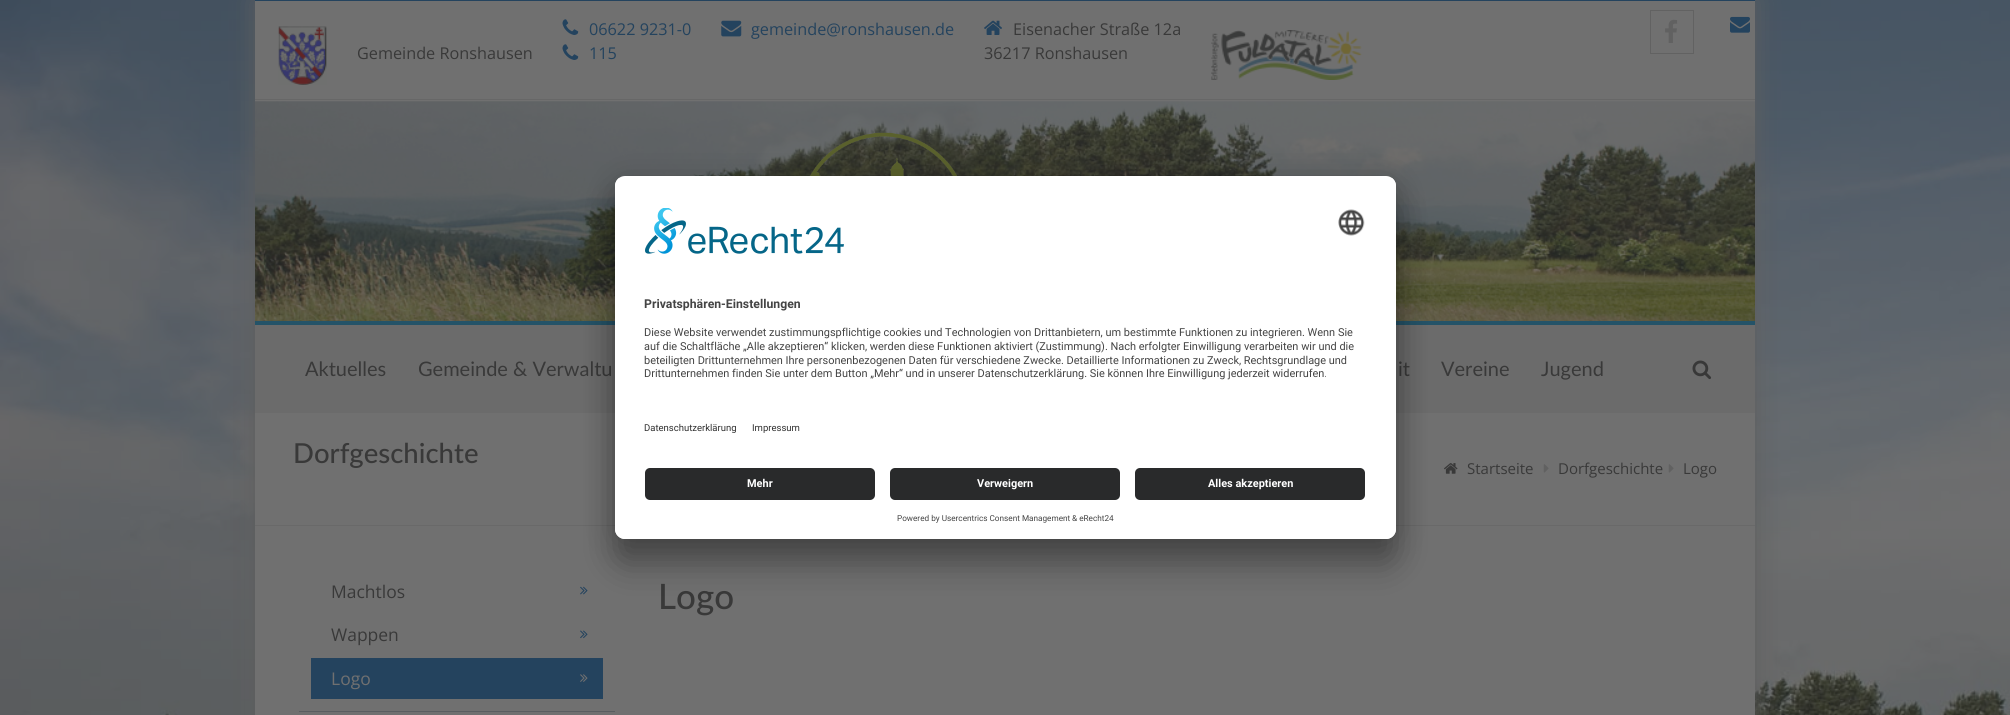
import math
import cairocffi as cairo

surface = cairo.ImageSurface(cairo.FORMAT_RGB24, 2010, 715)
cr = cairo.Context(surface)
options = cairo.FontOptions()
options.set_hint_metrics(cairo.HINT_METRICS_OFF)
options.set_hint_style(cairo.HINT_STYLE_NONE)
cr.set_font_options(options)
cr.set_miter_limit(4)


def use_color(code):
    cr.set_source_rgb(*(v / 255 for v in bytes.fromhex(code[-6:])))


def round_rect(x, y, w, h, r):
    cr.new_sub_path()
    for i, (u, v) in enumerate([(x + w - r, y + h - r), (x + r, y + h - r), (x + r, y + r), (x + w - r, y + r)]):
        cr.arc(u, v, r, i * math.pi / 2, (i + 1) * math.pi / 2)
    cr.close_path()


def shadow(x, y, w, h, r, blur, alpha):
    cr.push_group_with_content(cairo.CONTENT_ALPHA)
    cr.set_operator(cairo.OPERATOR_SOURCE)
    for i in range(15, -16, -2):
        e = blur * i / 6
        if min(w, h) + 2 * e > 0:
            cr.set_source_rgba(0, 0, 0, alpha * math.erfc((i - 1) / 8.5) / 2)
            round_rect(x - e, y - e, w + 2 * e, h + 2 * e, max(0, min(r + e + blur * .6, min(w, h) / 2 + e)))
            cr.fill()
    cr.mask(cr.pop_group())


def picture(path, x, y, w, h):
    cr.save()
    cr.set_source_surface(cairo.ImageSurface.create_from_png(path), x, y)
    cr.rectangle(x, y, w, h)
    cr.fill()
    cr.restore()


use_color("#ffffff")
cr.paint()
picture("img1.png", 0, 0, 2010, 715)
use_color("#5e5e5e")
shadow(255, 0, 1500, 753, 0, 12.5, 1)
use_color("#707070")
cr.rectangle(255, 1, 1500, 714)
cr.fill()
use_color("#24435e")
cr.rectangle(255, 0, 1500, 1)
cr.fill()
use_color("#676767")
cr.rectangle(255, 99, 1500, 1)
cr.fill()
picture("img2.png", 278, 26, 49, 59)
cr.select_font_face("Open Sans")
cr.set_font_size(16.25)
use_color("#393939")
cr.move_to(357, 59)
cr.show_text("Gemeinde Ronshausen")
picture("img3.png", 562, 19, 17, 16)
use_color("#24435e")
cr.move_to(589, 35)
cr.show_text("06622 9231-0")
picture("img3.png", 562, 44, 17, 16)
cr.move_to(589, 59)
cr.show_text("115")
picture("img4.png", 721, 20, 21, 17)
cr.move_to(751, 35)
cr.show_text("gemeinde@ronshausen.de")
picture("img5.png", 984, 20, 18, 15)
use_color("#393939")
cr.move_to(1013, 35)
cr.show_text("Eisenacher Straße 12a")
cr.move_to(984, 59)
cr.show_text("36217 Ronshausen")
picture("img6.png", 1211, 30, 151, 50)
cr.rectangle(1650.5, 10.5, 43, 43)
use_color("#626262")
cr.set_line_width(1)
cr.stroke()
picture("img7.png", 1665, 19, 13, 24)
picture("img8.png", 1730, 16, 20, 17)
picture("img9.png", 255, 101, 1500, 220)
picture("img10.png", 809, 132, 149, 44)
use_color("#6b6b6b")
cr.rectangle(255, 325, 1500, 88)
cr.fill()
use_color("#245368")
cr.rectangle(255, 321, 1500, 4)
cr.fill()
cr.select_font_face("Lato")
cr.set_font_size(20)
use_color("#393939")
cr.move_to(305, 376)
cr.show_text("Aktuelles")
cr.move_to(418, 376)
cr.show_text("Gemeinde & Verwaltu")
cr.move_to(1398, 376)
cr.show_text("it")
cr.move_to(1441, 376)
cr.show_text("Vereine")
cr.move_to(1541, 376)
cr.show_text("Jugend")
picture("img11.png", 1692, 360, 20, 20)
use_color("#696969")
cr.rectangle(255, 525, 1500, 1)
cr.fill()
cr.select_font_face("Lato Medium")
cr.set_font_size(27.5)
use_color("#393939")
cr.move_to(293, 463)
cr.show_text("Dorfgeschichte")
picture("img12.png", 1444, 463, 14, 11)
cr.select_font_face("Open Sans")
cr.set_font_size(15)
cr.move_to(1467, 474)
cr.show_text("Startseite")
picture("img13.png", 1543, 464, 6, 9)
cr.move_to(1558, 474)
cr.show_text("Dorfgeschichte")
picture("img13.png", 1668, 464, 6, 9)
cr.move_to(1683, 474)
cr.show_text("Logo")
use_color("#595d60")
cr.rectangle(299, 711, 316, 1)
cr.fill()
cr.set_font_size(17.5)
use_color("#393939")
cr.move_to(331, 598)
cr.show_text("Machtlos")
picture("img14.png", 580, 586, 8, 9)
cr.move_to(331, 641)
cr.show_text("Wappen")
picture("img15.png", 580, 630, 8, 9)
use_color("#24435e")
cr.rectangle(311, 658, 292, 41)
cr.fill()
use_color("#707070")
cr.move_to(331, 685)
cr.show_text("Logo")
picture("img16.png", 580, 674, 8, 8)
cr.select_font_face("Lato Medium")
cr.set_font_size(35)
use_color("#393939")
cr.move_to(658, 609)
cr.show_text("Logo")
use_color("#000000")
shadow(615, 201, 781, 363, 10, 17.5, 0.3)
shadow(615, 183, 781, 362, 10, 16, 0.22)
use_color("#ffffff")
round_rect(615, 176, 781, 363, 10)
cr.fill()
cr.save()
round_rect(615, 176, 781, 363, 10)
cr.clip()
cr.new_path()
cr.move_to(625, 176)
cr.line_to(1386, 176)
cr.curve_to(1391.5, 176, 1396, 180.5, 1396, 186)
cr.line_to(1396, 458)
cr.line_to(615, 458)
cr.line_to(615, 186)
cr.curve_to(615, 180.5, 619.5, 176, 625, 176)
cr.close_path()
cr.clip()
cr.rectangle(615, 178, 781, 280)
cr.fill()
cr.restore()
picture("img17.png", 645, 208, 199, 46)
picture("img18.png", 1338, 209, 27, 27)
cr.select_font_face("Roboto", cairo.FONT_SLANT_NORMAL, cairo.FONT_WEIGHT_BOLD)
cr.set_font_size(12.25)
use_color("#444444")
cr.move_to(644, 308)
cr.show_text("Privatsphären-Einstellungen")
cr.select_font_face("Roboto")
cr.set_font_size(10.95)
cr.move_to(644, 336)
cr.show_text("Diese Website verwendet zustimmungspflichtige cookies und Technologien von Drittanbietern, um bestimmte Funktionen zu integrieren. Wenn Sie")
cr.move_to(644, 350)
cr.show_text("auf die Schaltfläche „Alle akzeptieren“ klicken, werden diese Funktionen aktiviert (Zustimmung). Nach erfolgter Einwilligung verarbeiten wir und die")
cr.move_to(644, 364)
cr.show_text("beteiligten Drittunternehmen Ihre personenbezogenen Daten für verschiedene Zwecke. Detaillierte Informationen zu Zweck, Rechtsgrundlage und")
cr.move_to(644, 377)
cr.show_text("Drittunternehmen finden Sie unter dem Button „Mehr“ und in unserer Datenschutzerklärung. Sie können Ihre Einwilligung jederzeit widerrufen.")
cr.set_font_size(9.5)
use_color("#303030")
cr.move_to(644, 431)
cr.show_text("Datenschutzerklärung")
cr.move_to(752, 431)
cr.show_text("Impressum")
use_color("#ffffff")
cr.new_path()
cr.move_to(615, 458)
cr.line_to(1396, 458)
cr.line_to(1396, 529)
cr.curve_to(1396, 534.5, 1391.5, 539, 1386, 539)
cr.line_to(625, 539)
cr.curve_to(619.5, 539, 615, 534.5, 615, 529)
cr.close_path()
cr.fill()
use_color("#292a2b")
round_rect(645, 468, 230, 32, 5)
cr.fill()
cr.select_font_face("Roboto", cairo.FONT_SLANT_NORMAL, cairo.FONT_WEIGHT_BOLD)
cr.set_font_size(10.95)
use_color("#ffffff")
cr.move_to(747, 487)
cr.show_text("Mehr")
use_color("#292a2b")
round_rect(890, 468, 230, 32, 5)
cr.fill()
use_color("#ffffff")
cr.move_to(977, 487)
cr.show_text("Verweigern")
use_color("#292a2b")
round_rect(1135, 468, 230, 32, 5)
cr.fill()
use_color("#ffffff")
cr.move_to(1208, 487)
cr.show_text("Alles akzeptieren")
cr.select_font_face("Roboto")
cr.set_font_size(8.2)
use_color("#444444")
cr.move_to(897, 521)
cr.show_text("Powered by Usercentrics Consent Management")
cr.move_to(1072, 521)
cr.show_text("& eRecht24")
surface.write_to_png("result.png")
